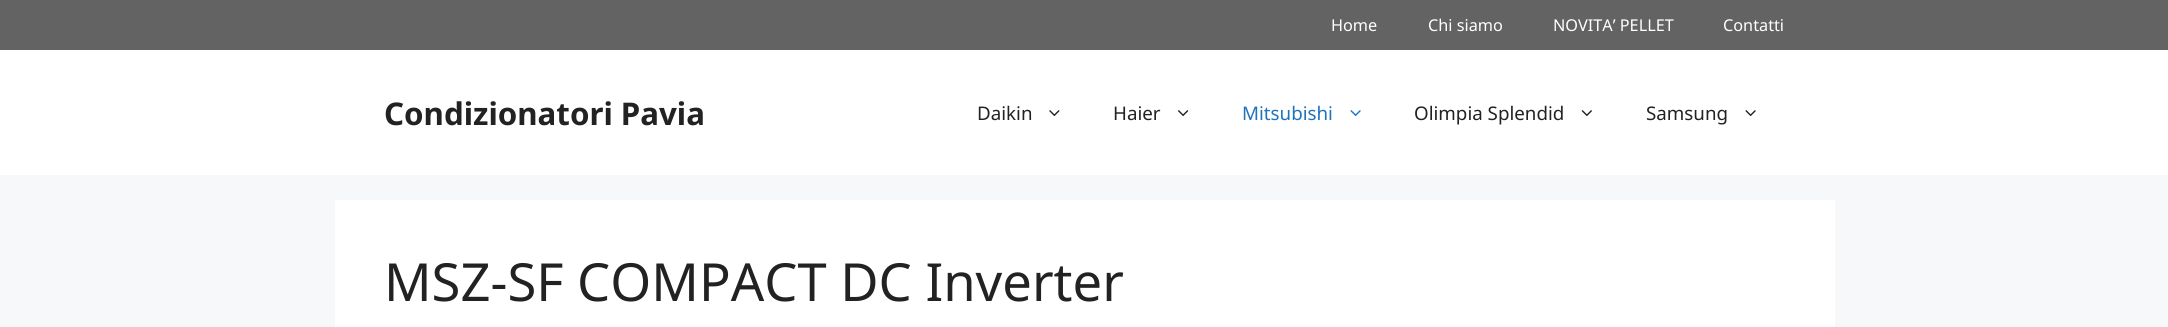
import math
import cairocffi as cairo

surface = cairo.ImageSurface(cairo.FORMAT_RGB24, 2168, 327)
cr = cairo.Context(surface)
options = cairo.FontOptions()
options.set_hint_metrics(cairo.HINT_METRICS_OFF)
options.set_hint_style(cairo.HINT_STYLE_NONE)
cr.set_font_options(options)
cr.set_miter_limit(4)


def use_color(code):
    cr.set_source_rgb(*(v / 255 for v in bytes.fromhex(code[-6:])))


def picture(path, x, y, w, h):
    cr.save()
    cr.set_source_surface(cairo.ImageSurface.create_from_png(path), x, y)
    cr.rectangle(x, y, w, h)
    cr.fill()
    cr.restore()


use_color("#f7f8f9")
cr.paint()
use_color("#636363")
cr.rectangle(0, 0, 2168, 50)
cr.fill()
cr.select_font_face("Noto Sans")
cr.set_font_size(16.25)
use_color("#ffffff")
cr.move_to(1331, 31)
cr.show_text("Home")
cr.move_to(1428, 31)
cr.show_text("Chi siamo")
cr.move_to(1553, 31)
cr.show_text("NOVITA’ PELLET")
cr.move_to(1723, 31)
cr.show_text("Contatti")
cr.rectangle(0, 50, 2168, 125)
cr.fill()
cr.select_font_face("Noto Sans", cairo.FONT_SLANT_NORMAL, cairo.FONT_WEIGHT_BOLD)
cr.set_font_size(31.25)
use_color("#222222")
cr.move_to(384, 125)
cr.show_text("Condizionatori Pavia")
cr.select_font_face("Noto Sans")
cr.set_font_size(18.75)
cr.move_to(977, 120)
cr.show_text("Daikin")
picture("img1.png", 1049, 110, 11, 7)
cr.move_to(1113, 120)
cr.show_text("Haier")
picture("img2.png", 1178, 110, 11, 7)
use_color("#1e73be")
cr.move_to(1242, 120)
cr.show_text("Mitsubishi")
picture("img3.png", 1350, 110, 11, 7)
use_color("#222222")
cr.move_to(1414, 120)
cr.show_text("Olimpia Splendid")
picture("img4.png", 1581, 110, 11, 7)
cr.move_to(1646, 120)
cr.show_text("Samsung")
picture("img5.png", 1745, 110, 11, 7)
use_color("#ffffff")
cr.rectangle(335, 200, 1500, 127)
cr.fill()
cr.set_font_size(52.5)
use_color("#222222")
cr.move_to(384, 301)
cr.show_text("MSZ-SF COMPACT DC Inverter")
surface.write_to_png("result.png")
